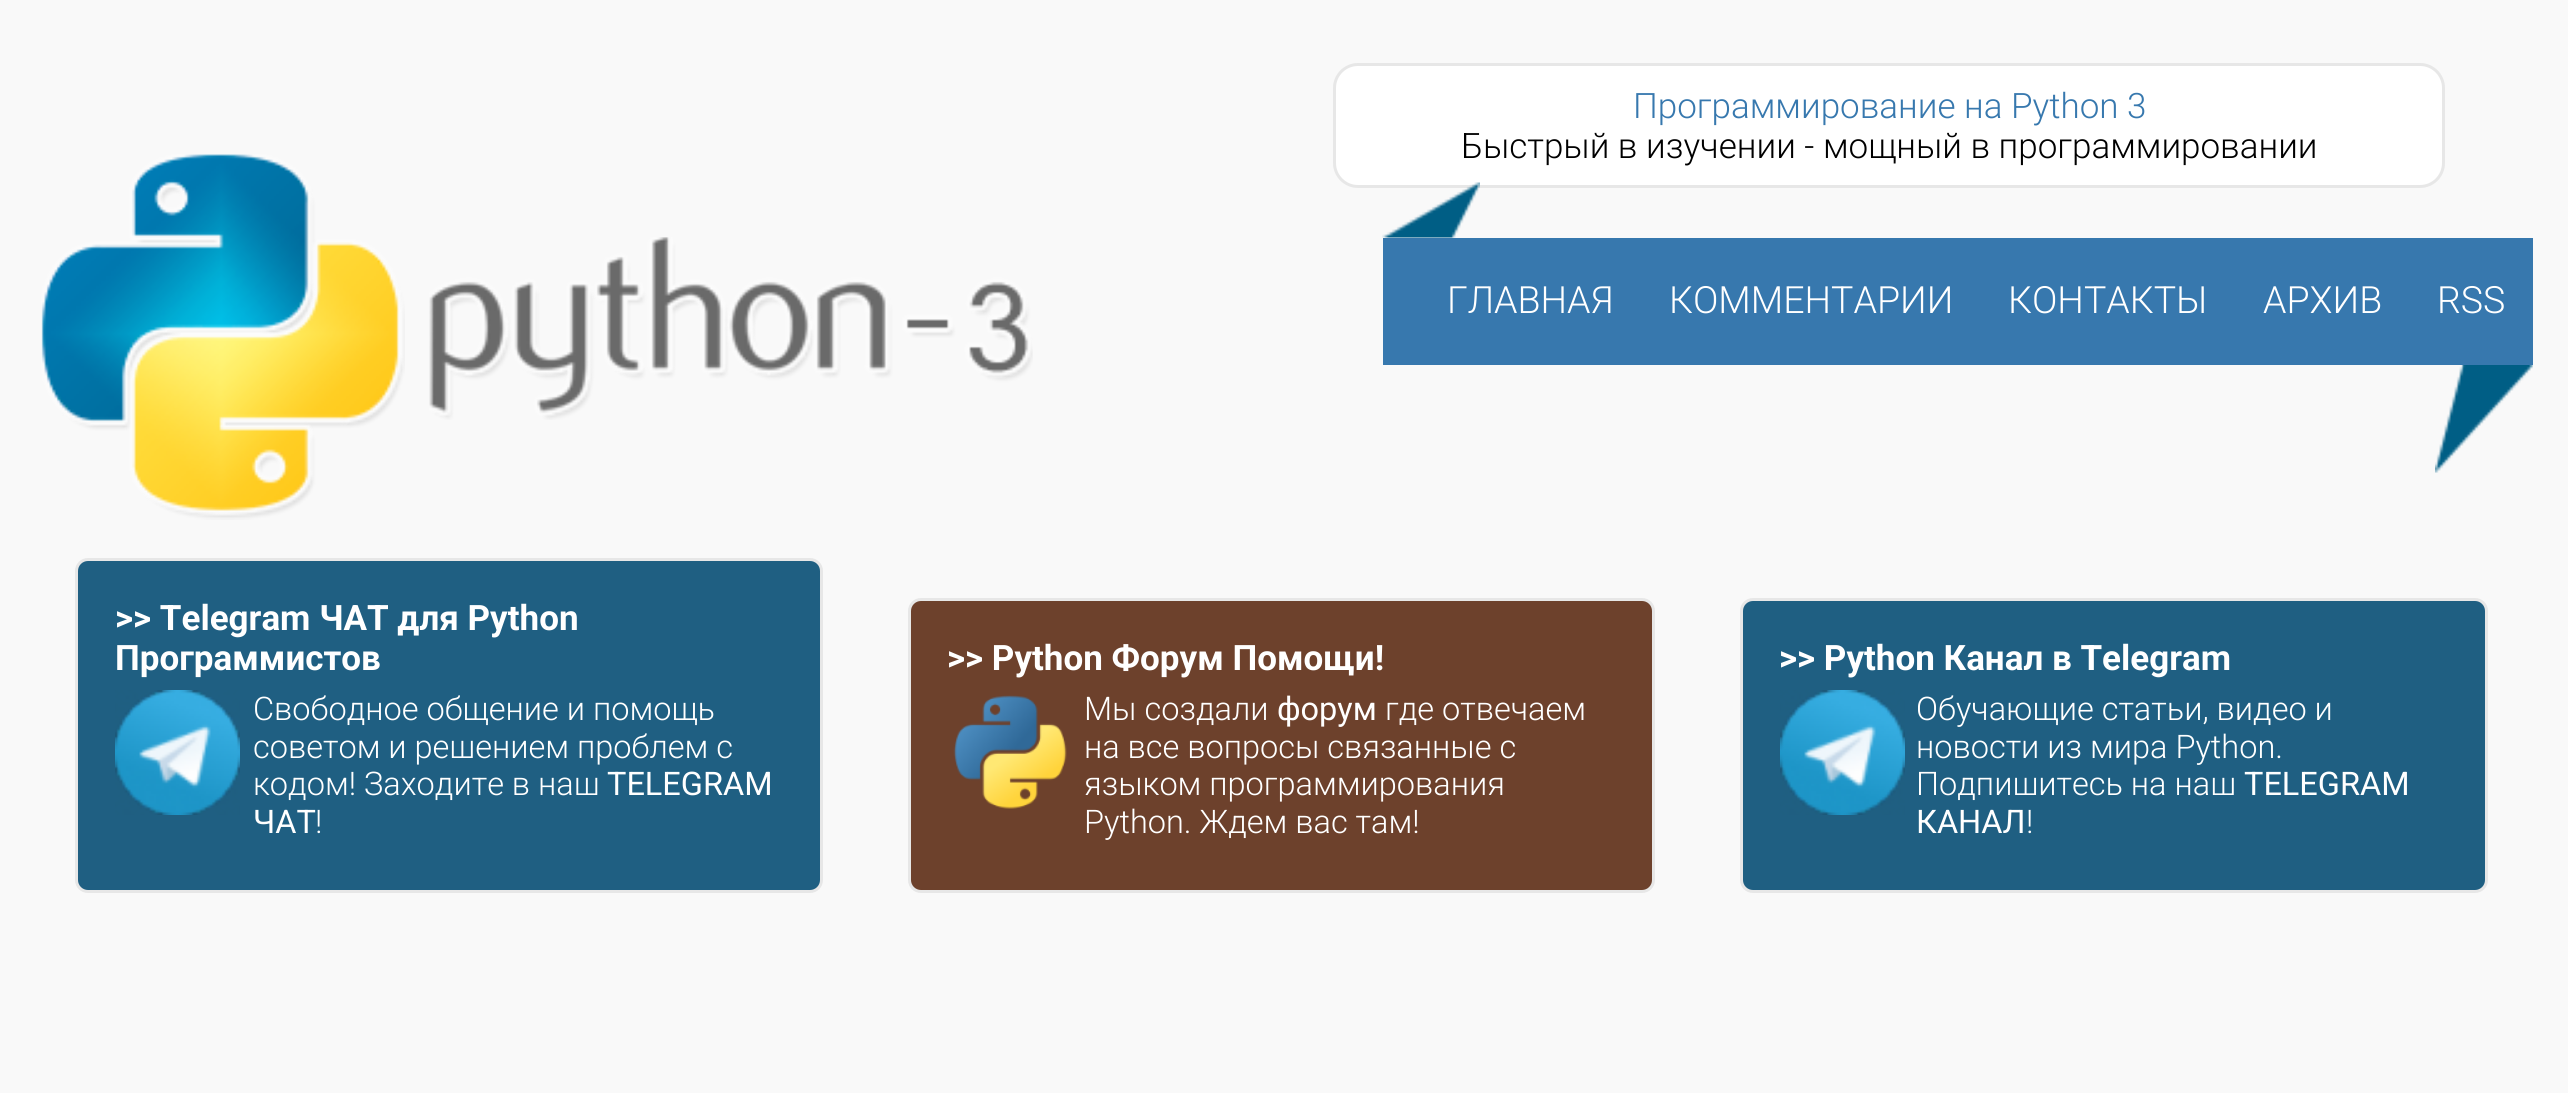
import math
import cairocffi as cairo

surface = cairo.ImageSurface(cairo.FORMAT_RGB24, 2568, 1093)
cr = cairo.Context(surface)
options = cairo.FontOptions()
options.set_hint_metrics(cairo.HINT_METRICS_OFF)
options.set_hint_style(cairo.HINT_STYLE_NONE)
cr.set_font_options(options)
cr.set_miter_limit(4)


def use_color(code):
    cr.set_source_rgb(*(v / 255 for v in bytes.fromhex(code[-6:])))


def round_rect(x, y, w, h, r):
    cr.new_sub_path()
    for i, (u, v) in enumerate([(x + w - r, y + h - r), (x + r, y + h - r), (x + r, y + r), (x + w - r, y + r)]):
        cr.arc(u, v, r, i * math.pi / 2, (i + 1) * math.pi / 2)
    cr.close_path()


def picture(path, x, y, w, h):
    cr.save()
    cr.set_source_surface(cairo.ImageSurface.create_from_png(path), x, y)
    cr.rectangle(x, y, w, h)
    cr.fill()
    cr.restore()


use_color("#f9f9f9")
cr.paint()
use_color("#ffffff")
round_rect(1334.5, 64.5, 1109, 122, 23.5)
cr.fill_preserve()
use_color("#e7e7e7")
cr.set_line_width(3)
cr.stroke()
cr.select_font_face("Roboto Light")
cr.set_font_size(35)
use_color("#3778ae")
cr.move_to(1633, 118)
cr.show_text("Программирование на Python 3")
use_color("#000000")
cr.move_to(1461, 158)
cr.show_text("Быстрый в изучении - мощный в программировании")
picture("img1.png", 41, 154, 364, 366)
picture("img2.png", 429, 237, 604, 183)
use_color("#3778ae")
cr.rectangle(1383, 238, 1150, 127)
cr.fill()
picture("img3.png", 1382, 182, 98, 56)
cr.set_font_size(37.5)
use_color("#ffffff")
cr.move_to(1447, 313)
cr.show_text("ГЛАВНАЯ")
cr.move_to(1669, 313)
cr.show_text("КОММЕНТАРИИ")
cr.move_to(2008, 313)
cr.show_text("КОНТАКТЫ")
cr.move_to(2263, 313)
cr.show_text("АРХИВ")
cr.move_to(2437, 313)
cr.show_text("RSS")
picture("img4.png", 2435, 365, 98, 108)
use_color("#1f5f82")
round_rect(76.5, 559.5, 745, 332, 11.5)
cr.fill_preserve()
use_color("#e7e7e7")
cr.stroke()
cr.select_font_face("Roboto", cairo.FONT_SLANT_NORMAL, cairo.FONT_WEIGHT_BOLD)
cr.set_font_size(35)
use_color("#ffffff")
cr.move_to(115, 630)
cr.show_text(">> Telegram ЧАТ для Python")
cr.move_to(115, 670)
cr.show_text("Программистов")
picture("img5.png", 115, 690, 125, 125)
cr.select_font_face("Roboto Light")
cr.set_font_size(32.5)
cr.move_to(253, 720)
cr.show_text("Свободное общение и помощь")
cr.move_to(253, 758)
cr.show_text("советом и решением проблем с")
cr.move_to(253, 795)
cr.show_text("кодом! Заходите в наш")
cr.select_font_face("Roboto")
cr.move_to(607, 795)
cr.show_text("TELEGRAM")
cr.move_to(253, 833)
cr.show_text("ЧАТ")
cr.select_font_face("Roboto Light")
cr.move_to(315, 833)
cr.show_text("!")
use_color("#6d412c")
round_rect(909.5, 599.5, 744, 292, 11.5)
cr.fill_preserve()
use_color("#e7e7e7")
cr.stroke()
cr.select_font_face("Roboto", cairo.FONT_SLANT_NORMAL, cairo.FONT_WEIGHT_BOLD)
cr.set_font_size(35)
use_color("#ffffff")
cr.move_to(947, 670)
cr.show_text(">> Python Форум Помощи!")
picture("img6.png", 953, 695, 114, 114)
cr.select_font_face("Roboto Light")
cr.set_font_size(32.5)
cr.move_to(1084, 720)
cr.show_text("Мы создали")
cr.select_font_face("Roboto")
cr.move_to(1277, 720)
cr.show_text("форум")
cr.select_font_face("Roboto Light")
cr.move_to(1385, 720)
cr.show_text("где отвечаем")
cr.move_to(1084, 758)
cr.show_text("на все вопросы связанные с")
cr.move_to(1084, 795)
cr.show_text("языком программирования")
cr.move_to(1084, 833)
cr.show_text("Python. Ждем вас там!")
use_color("#1f5f82")
round_rect(1741.5, 599.5, 745, 292, 11.5)
cr.fill_preserve()
use_color("#e7e7e7")
cr.stroke()
cr.select_font_face("Roboto", cairo.FONT_SLANT_NORMAL, cairo.FONT_WEIGHT_BOLD)
cr.set_font_size(35)
use_color("#ffffff")
cr.move_to(1779, 670)
cr.show_text(">> Python Канал в Telegram")
picture("img5.png", 1780, 690, 125, 125)
cr.select_font_face("Roboto Light")
cr.set_font_size(32.5)
cr.move_to(1916, 720)
cr.show_text("Обучающие статьи, видео и")
cr.move_to(1916, 758)
cr.show_text("новости из мира Python.")
cr.move_to(1916, 795)
cr.show_text("Подпишитесь на наш")
cr.select_font_face("Roboto")
cr.move_to(2244, 795)
cr.show_text("TELEGRAM")
cr.move_to(1916, 833)
cr.show_text("КАНАЛ")
cr.select_font_face("Roboto Light")
cr.move_to(2026, 833)
cr.show_text("!")
surface.write_to_png("result.png")
